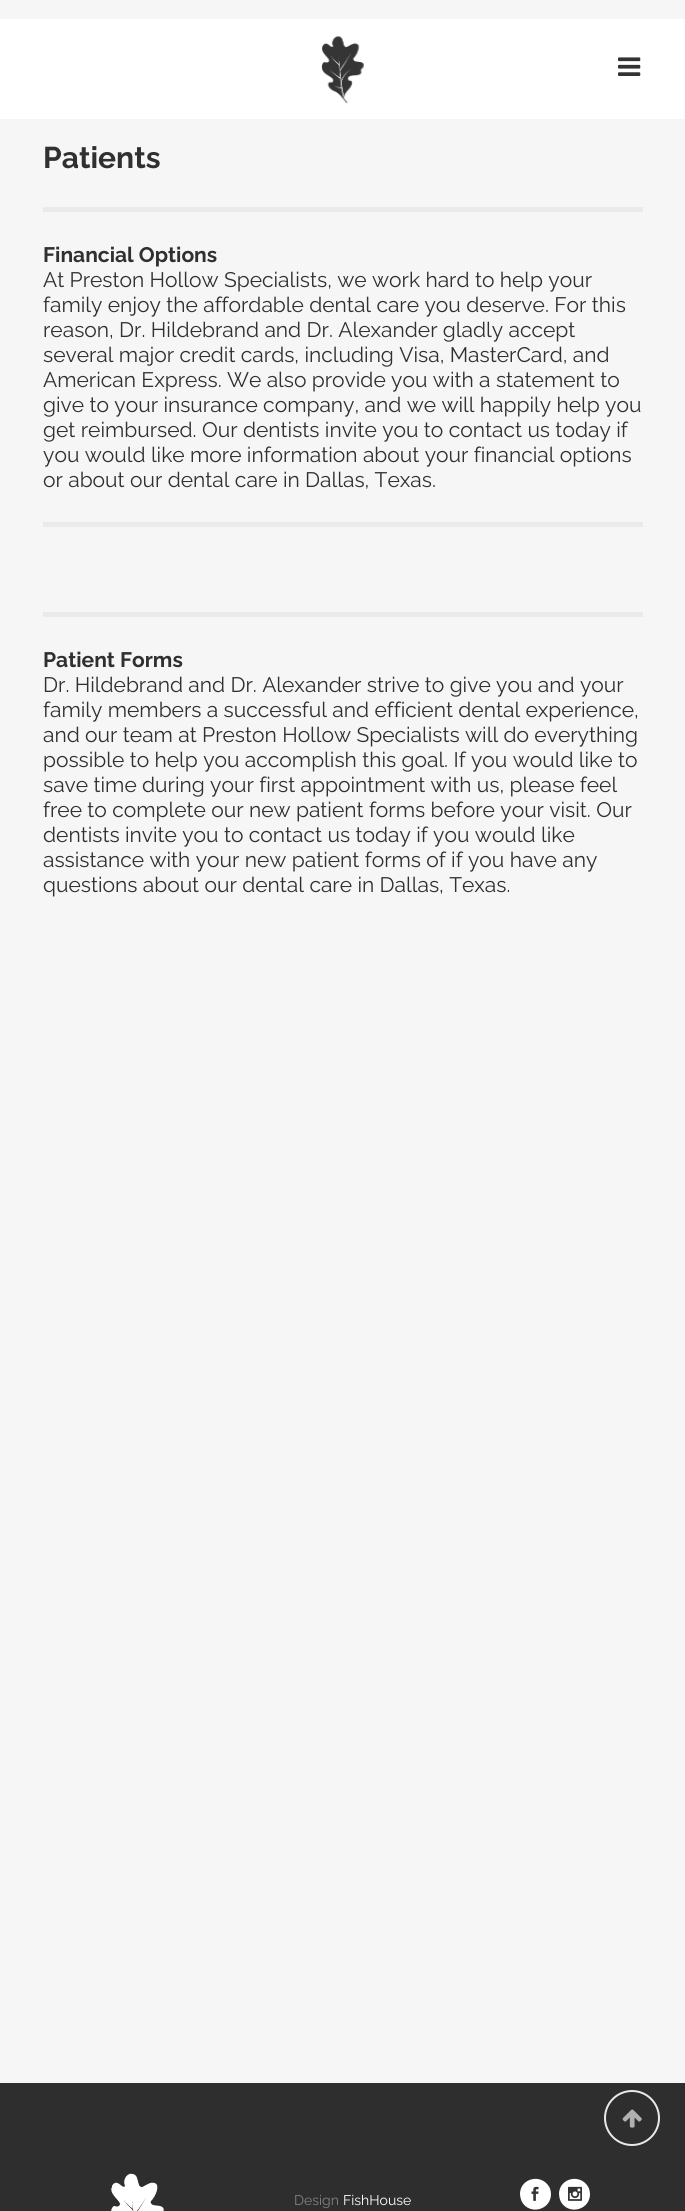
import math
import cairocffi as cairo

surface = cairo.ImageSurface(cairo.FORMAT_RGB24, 685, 2211)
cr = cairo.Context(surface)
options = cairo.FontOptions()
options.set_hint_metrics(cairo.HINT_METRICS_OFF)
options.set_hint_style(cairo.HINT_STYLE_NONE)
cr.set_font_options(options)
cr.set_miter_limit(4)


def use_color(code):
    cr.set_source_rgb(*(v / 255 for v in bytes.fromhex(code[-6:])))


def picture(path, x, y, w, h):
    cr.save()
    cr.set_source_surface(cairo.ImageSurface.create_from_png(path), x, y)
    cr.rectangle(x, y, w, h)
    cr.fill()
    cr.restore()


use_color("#f6f6f6")
cr.paint()
use_color("#ffffff")
cr.rectangle(0, 19, 685, 100)
cr.fill()
picture("img1.png", 321, 35, 43, 69)
picture("img2.png", 618, 57, 23, 19)
cr.select_font_face("Raleway", cairo.FONT_SLANT_NORMAL, cairo.FONT_WEIGHT_BOLD)
cr.set_font_size(30)
use_color("#303030")
cr.move_to(43, 168)
cr.show_text("Patients")
use_color("#eaeaea")
cr.rectangle(43, 207, 600, 5)
cr.fill()
cr.set_font_size(21)
use_color("#303030")
cr.move_to(43, 262)
cr.show_text("Financial Options")
cr.select_font_face("Raleway")
cr.move_to(43, 287)
cr.show_text("At Preston Hollow Specialists, we work hard to help your")
cr.move_to(43, 312)
cr.show_text("family enjoy the affordable dental care you deserve. For this")
cr.move_to(43, 337)
cr.show_text("reason, Dr. Hildebrand and Dr. Alexander gladly accept")
cr.move_to(43, 362)
cr.show_text("several major credit cards, including Visa, MasterCard, and")
cr.move_to(43, 387)
cr.show_text("American Express. We also provide you with a statement to")
cr.move_to(43, 412)
cr.show_text("give to your insurance company, and we will happily help you")
cr.move_to(43, 437)
cr.show_text("get reimbursed. Our dentists invite you to contact us today if")
cr.move_to(43, 462)
cr.show_text("you would like more information about your financial options")
cr.move_to(43, 487)
cr.show_text("or about our dental care in Dallas, Texas.")
use_color("#eaeaea")
cr.rectangle(43, 522, 600, 5)
cr.fill()
cr.rectangle(43, 612, 600, 5)
cr.fill()
cr.select_font_face("Raleway", cairo.FONT_SLANT_NORMAL, cairo.FONT_WEIGHT_BOLD)
use_color("#303030")
cr.move_to(43, 667)
cr.show_text("Patient Forms")
cr.select_font_face("Raleway")
cr.move_to(43, 692)
cr.show_text("Dr. Hildebrand and Dr. Alexander strive to give you and your")
cr.move_to(43, 717)
cr.show_text("family members a successful and efficient dental experience,")
cr.move_to(43, 742)
cr.show_text("and our team at Preston Hollow Specialists will do everything")
cr.move_to(43, 767)
cr.show_text("possible to help you accomplish this goal. If you would like to")
cr.move_to(43, 792)
cr.show_text("save time during your first appointment with us, please feel")
cr.move_to(43, 817)
cr.show_text("free to complete our new patient forms before your visit. Our")
cr.move_to(43, 842)
cr.show_text("dentists invite you to contact us today if you would like")
cr.move_to(43, 867)
cr.show_text("assistance with your new patient forms of if you have any")
cr.move_to(43, 892)
cr.show_text("questions about our dental care in Dallas, Texas.")
use_color("#2e2e2e")
cr.rectangle(0, 2083, 685, 128)
cr.fill()
cr.arc(632, 2118, 27, 0, 2 * math.pi)
use_color("#e8e8e8")
cr.stroke()
picture("img3.png", 622, 2109, 20, 19)
picture("img4.png", 111, 2173, 53, 38)
cr.set_font_size(14)
use_color("#818181")
cr.move_to(294, 2205)
cr.show_text("Design")
use_color("#ffffff")
cr.move_to(343, 2205)
cr.show_text("FishHouse")
cr.new_path()
cr.move_to(549, 2186.5)
cr.curve_to(550.5, 2189, 551, 2192, 551, 2195)
cr.curve_to(550, 2210.5, 529.5, 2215, 522, 2202)
cr.curve_to(520.5, 2199, 520, 2196, 520, 2193)
cr.curve_to(521, 2178, 541, 2173.5, 549, 2186.5)
cr.close_path()
cr.fill()
picture("img5.png", 531, 2186, 8, 15)
cr.new_path()
cr.move_to(588, 2186.5)
cr.curve_to(589.5, 2189, 590, 2192, 590, 2195)
cr.curve_to(589, 2210.5, 568.5, 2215, 561, 2202)
cr.curve_to(559.5, 2199, 559, 2196, 559, 2193)
cr.curve_to(560, 2178, 580, 2173.5, 588, 2186.5)
cr.close_path()
cr.fill()
picture("img6.png", 568, 2186, 14, 15)
surface.write_to_png("result.png")
